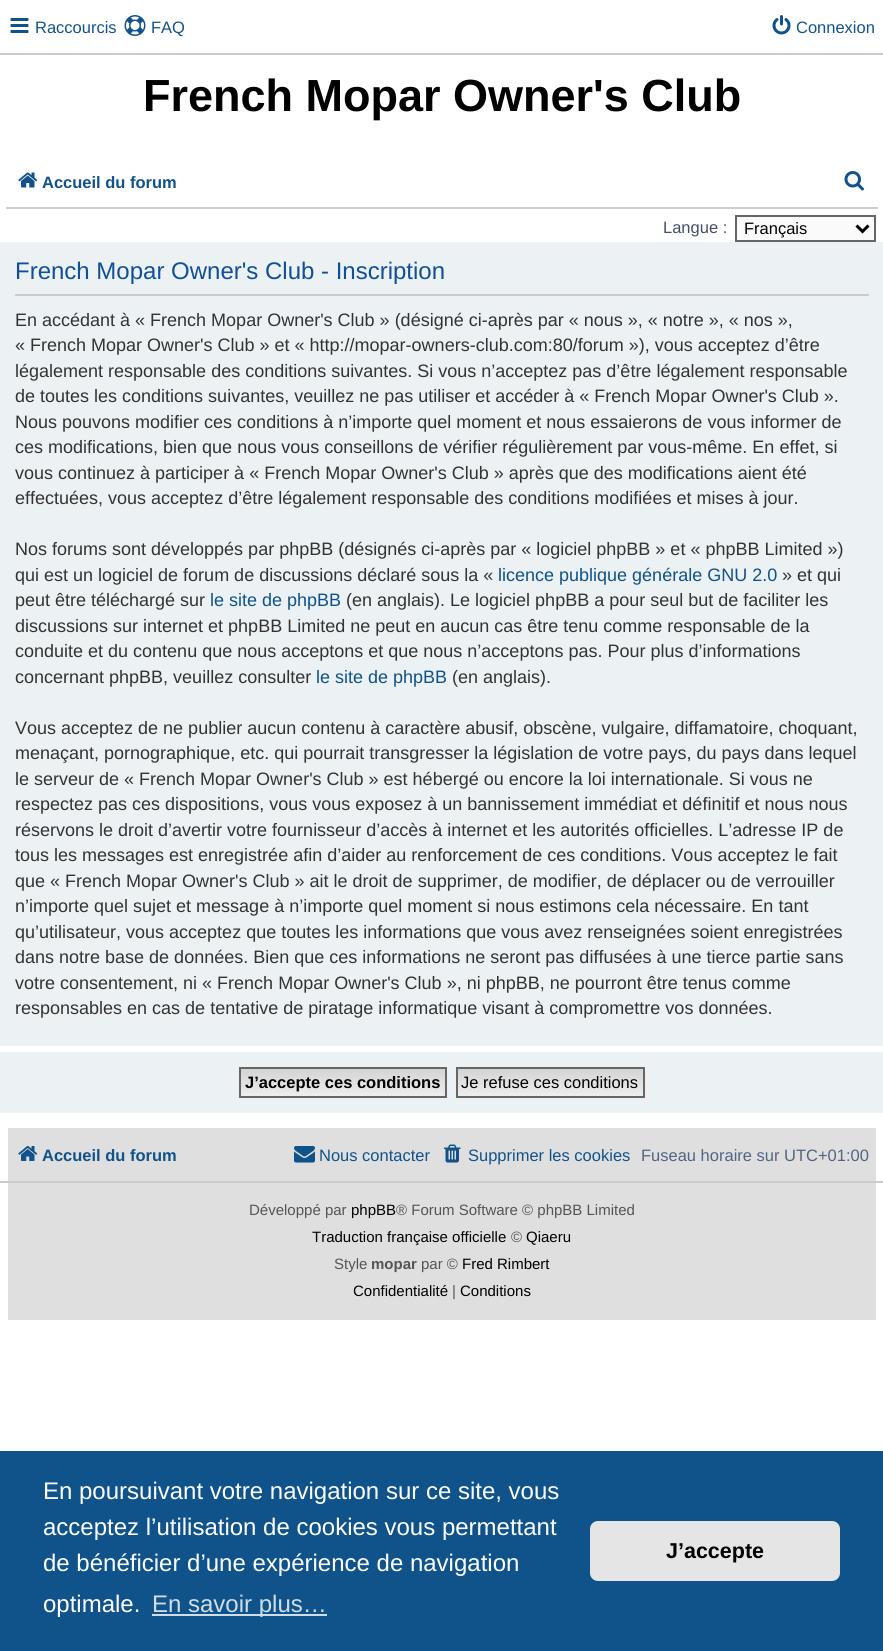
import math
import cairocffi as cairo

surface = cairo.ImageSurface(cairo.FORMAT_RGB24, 883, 1651)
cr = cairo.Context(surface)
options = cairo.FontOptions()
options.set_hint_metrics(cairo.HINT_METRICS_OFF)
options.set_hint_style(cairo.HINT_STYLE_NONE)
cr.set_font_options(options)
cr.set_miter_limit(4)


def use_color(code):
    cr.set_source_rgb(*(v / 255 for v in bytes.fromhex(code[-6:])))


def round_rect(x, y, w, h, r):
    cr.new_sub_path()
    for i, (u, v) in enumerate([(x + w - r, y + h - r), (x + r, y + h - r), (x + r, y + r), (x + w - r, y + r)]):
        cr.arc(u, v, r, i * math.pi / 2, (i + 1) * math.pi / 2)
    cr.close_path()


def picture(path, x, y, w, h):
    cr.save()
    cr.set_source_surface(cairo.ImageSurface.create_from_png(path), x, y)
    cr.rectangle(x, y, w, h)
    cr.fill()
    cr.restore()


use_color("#ffffff")
cr.paint()
use_color("#cccccc")
cr.rectangle(0, 53, 883, 2)
cr.fill()
picture("img1.png", 10, 18, 19, 15)
cr.select_font_face("Liberation Sans")
cr.set_font_size(16.5)
use_color("#105289")
cr.move_to(35, 33)
cr.show_text("Raccourcis")
picture("img2.png", 124, 15, 22, 21)
cr.move_to(151, 33)
cr.show_text("FAQ")
picture("img3.png", 772, 15, 19, 20)
cr.move_to(796, 33)
cr.show_text("Connexion")
cr.select_font_face("Liberation Sans", cairo.FONT_SLANT_NORMAL, cairo.FONT_WEIGHT_BOLD)
cr.set_font_size(45)
use_color("#000000")
cr.move_to(143, 111)
cr.show_text("French Mopar Owner's Club")
use_color("#cccccc")
cr.rectangle(6, 207, 872, 2)
cr.fill()
picture("img4.png", 18, 172, 20, 16)
cr.set_font_size(16.5)
use_color("#105289")
cr.move_to(42, 188)
cr.show_text("Accueil du forum")
picture("img5.png", 844, 171, 20, 20)
cr.select_font_face("Liberation Sans")
use_color("#425067")
cr.move_to(663, 233)
cr.show_text("Langue :")
use_color("#fafafa")
cr.rectangle(736, 216, 139, 25)
cr.fill_preserve()
use_color("#666666")
cr.stroke()
cr.new_path()
cr.move_to(856.5, 225.5)
cr.line_to(862.5, 231.5)
cr.line_to(868.5, 225.5)
use_color("#000000")
cr.set_line_width(3)
cr.stroke()
cr.move_to(744, 234)
cr.show_text("Français")
use_color("#ecf1f3")
cr.rectangle(0, 242, 883, 804)
cr.fill()
use_color("#cccccc")
cr.rectangle(15, 294, 854, 2)
cr.fill()
cr.set_font_size(24)
use_color("#115098")
cr.move_to(15, 279)
cr.show_text("French Mopar Owner's Club - Inscription")
cr.set_font_size(18)
use_color("#333333")
cr.move_to(15, 326)
cr.show_text("En accédant à « French Mopar Owner's Club » (désigné ci-après par « nous », « notre », « nos »,")
cr.move_to(15, 351)
cr.show_text("« French Mopar Owner's Club » et « http://mopar-owners-club.com:80/forum »), vous acceptez d’être")
cr.move_to(15, 377)
cr.show_text("légalement responsable des conditions suivantes. Si vous n’acceptez pas d’être légalement responsable")
cr.move_to(15, 402)
cr.show_text("de toutes les conditions suivantes, veuillez ne pas utiliser et accéder à « French Mopar Owner's Club ».")
cr.move_to(15, 428)
cr.show_text("Nous pouvons modifier ces conditions à n’importe quel moment et nous essaierons de vous informer de")
cr.move_to(15, 453)
cr.show_text("ces modifications, bien que nous vous conseillons de vérifier régulièrement par vous-même. En effet, si")
cr.move_to(15, 479)
cr.show_text("vous continuez à participer à « French Mopar Owner's Club » après que des modifications aient été")
cr.move_to(15, 504)
cr.show_text("effectuées, vous acceptez d’être légalement responsable des conditions modifiées et mises à jour.")
cr.move_to(15, 555)
cr.show_text("Nos forums sont développés par phpBB (désignés ci-après par « logiciel phpBB » et « phpBB Limited »)")
cr.move_to(15, 581)
cr.show_text("qui est un logiciel de forum de discussions déclaré sous la «")
use_color("#105289")
cr.move_to(498, 581)
cr.show_text("licence publique générale GNU 2.0")
use_color("#333333")
cr.move_to(782, 581)
cr.show_text("» et qui")
cr.move_to(15, 606)
cr.show_text("peut être téléchargé sur")
use_color("#105289")
cr.move_to(210, 606)
cr.show_text("le site de phpBB")
use_color("#333333")
cr.move_to(346, 606)
cr.show_text("(en anglais). Le logiciel phpBB a pour seul but de faciliter les")
cr.move_to(15, 632)
cr.show_text("discussions sur internet et phpBB Limited ne peut en aucun cas être tenu comme responsable de la")
cr.move_to(15, 657)
cr.show_text("conduite et du contenu que nous acceptons et que nous n’acceptons pas. Pour plus d’informations")
cr.move_to(15, 683)
cr.show_text("concernant phpBB, veuillez consulter")
use_color("#105289")
cr.move_to(316, 683)
cr.show_text("le site de phpBB")
use_color("#333333")
cr.move_to(452, 683)
cr.show_text("(en anglais).")
cr.move_to(15, 734)
cr.show_text("Vous acceptez de ne publier aucun contenu à caractère abusif, obscène, vulgaire, diffamatoire, choquant,")
cr.move_to(15, 759)
cr.show_text("menaçant, pornographique, etc. qui pourrait transgresser la législation de votre pays, du pays dans lequel")
cr.move_to(15, 785)
cr.show_text("le serveur de « French Mopar Owner's Club » est hébergé ou encore la loi internationale. Si vous ne")
cr.move_to(15, 810)
cr.show_text("respectez pas ces dispositions, vous vous exposez à un bannissement immédiat et définitif et nous nous")
cr.move_to(15, 836)
cr.show_text("réservons le droit d’avertir votre fournisseur d’accès à internet et les autorités officielles. L’adresse IP de")
cr.move_to(15, 861)
cr.show_text("tous les messages est enregistrée afin d’aider au renforcement de ces conditions. Vous acceptez le fait")
cr.move_to(15, 887)
cr.show_text("que « French Mopar Owner's Club » ait le droit de supprimer, de modifier, de déplacer ou de verrouiller")
cr.move_to(15, 912)
cr.show_text("n’importe quel sujet et message à n’importe quel moment si nous estimons cela nécessaire. En tant")
cr.move_to(15, 938)
cr.show_text("qu’utilisateur, vous acceptez que toutes les informations que vous avez renseignées soient enregistrées")
cr.move_to(15, 963)
cr.show_text("dans notre base de données. Bien que ces informations ne seront pas diffusées à une tierce partie sans")
cr.move_to(15, 989)
cr.show_text("votre consentement, ni « French Mopar Owner's Club », ni phpBB, ne pourront être tenus comme")
cr.move_to(15, 1014)
cr.show_text("responsables en cas de tentative de piratage informatique visant à compromettre vos données.")
use_color("#ecf1f3")
cr.rectangle(0, 1052, 883, 61)
cr.fill()
gradient = cairo.LinearGradient(343, 1068, 343, 1097)
gradient.add_color_stop_rgba(0, 0.824, 0.824, 0.824, 1)
gradient.add_color_stop_rgba(1, 0.937, 0.937, 0.937, 1)
cr.set_source(gradient)
cr.rectangle(241, 1069, 204, 27)
cr.fill()
cr.rectangle(240, 1068, 206, 29)
use_color("#666666")
cr.set_line_width(2)
cr.stroke()
cr.select_font_face("Liberation Sans", cairo.FONT_SLANT_NORMAL, cairo.FONT_WEIGHT_BOLD)
cr.set_font_size(16.5)
use_color("#000000")
cr.move_to(245, 1088)
cr.show_text("J’accepte ces conditions")
gradient = cairo.LinearGradient(551, 1068, 551, 1097)
gradient.add_color_stop_rgba(0, 0.824, 0.824, 0.824, 1)
gradient.add_color_stop_rgba(1, 0.937, 0.937, 0.937, 1)
cr.set_source(gradient)
cr.rectangle(458, 1069, 185, 27)
cr.fill()
cr.rectangle(457, 1068, 187, 29)
use_color("#666666")
cr.stroke()
cr.select_font_face("Liberation Sans")
use_color("#000000")
cr.move_to(461, 1088)
cr.show_text("Je refuse ces conditions")
use_color("#dfdfdf")
cr.rectangle(8, 1128, 868, 192)
cr.fill()
use_color("#cccccc")
cr.rectangle(0, 1181, 883, 2)
cr.fill()
picture("img6.png", 18, 1146, 20, 15)
cr.select_font_face("Liberation Sans", cairo.FONT_SLANT_NORMAL, cairo.FONT_WEIGHT_BOLD)
use_color("#105289")
cr.move_to(42, 1161)
cr.show_text("Accueil du forum")
picture("img7.png", 294, 1146, 21, 17)
cr.select_font_face("Liberation Sans")
cr.move_to(319, 1161)
cr.show_text("Nous contacter")
picture("img8.png", 444, 1144, 17, 19)
cr.move_to(468, 1161)
cr.show_text("Supprimer les cookies")
use_color("#536482")
cr.move_to(641, 1161)
cr.show_text("Fuseau horaire sur UTC+01:00")
cr.set_font_size(15)
use_color("#555555")
cr.move_to(249, 1215)
cr.show_text("Développé par")
use_color("#000000")
cr.move_to(351, 1215)
cr.show_text("phpBB")
use_color("#555555")
cr.move_to(396, 1215)
cr.show_text("® Forum Software © phpBB Limited")
use_color("#000000")
cr.move_to(312, 1242)
cr.show_text("Traduction française officielle")
use_color("#555555")
cr.move_to(511, 1242)
cr.show_text("©")
use_color("#000000")
cr.move_to(526, 1242)
cr.show_text("Qiaeru")
use_color("#555555")
cr.move_to(334, 1269)
cr.show_text("Style")
cr.select_font_face("Liberation Sans", cairo.FONT_SLANT_NORMAL, cairo.FONT_WEIGHT_BOLD)
cr.move_to(371, 1269)
cr.show_text("mopar")
cr.select_font_face("Liberation Sans")
cr.move_to(421, 1269)
cr.show_text("par ©")
use_color("#000000")
cr.move_to(462, 1269)
cr.show_text("Fred Rimbert")
cr.move_to(353, 1296)
cr.show_text("Confidentialité")
use_color("#555555")
cr.move_to(452, 1296)
cr.show_text("|")
use_color("#000000")
cr.move_to(460, 1296)
cr.show_text("Conditions")
use_color("#0f538a")
cr.rectangle(0, 1451, 883, 200)
cr.fill()
cr.set_font_size(24)
use_color("#ffffff")
cr.move_to(43, 1499)
cr.show_text("En poursuivant votre navigation sur ce site, vous")
cr.move_to(43, 1535)
cr.show_text("acceptez l’utilisation de cookies vous permettant")
cr.move_to(43, 1571)
cr.show_text("de bénéficier d’une expérience de navigation")
cr.move_to(43, 1612)
cr.show_text("optimale.")
use_color("#cfdde8")
cr.rectangle(152, 1614, 175, 2)
cr.fill()
cr.move_to(152, 1612)
cr.show_text("En savoir plus…")
use_color("#e5e5e5")
round_rect(590, 1521, 250, 60, 8)
cr.fill()
cr.select_font_face("Liberation Sans", cairo.FONT_SLANT_NORMAL, cairo.FONT_WEIGHT_BOLD)
cr.set_font_size(21.5)
use_color("#000000")
cr.move_to(666, 1558)
cr.show_text("J’accepte")
surface.write_to_png("result.png")
